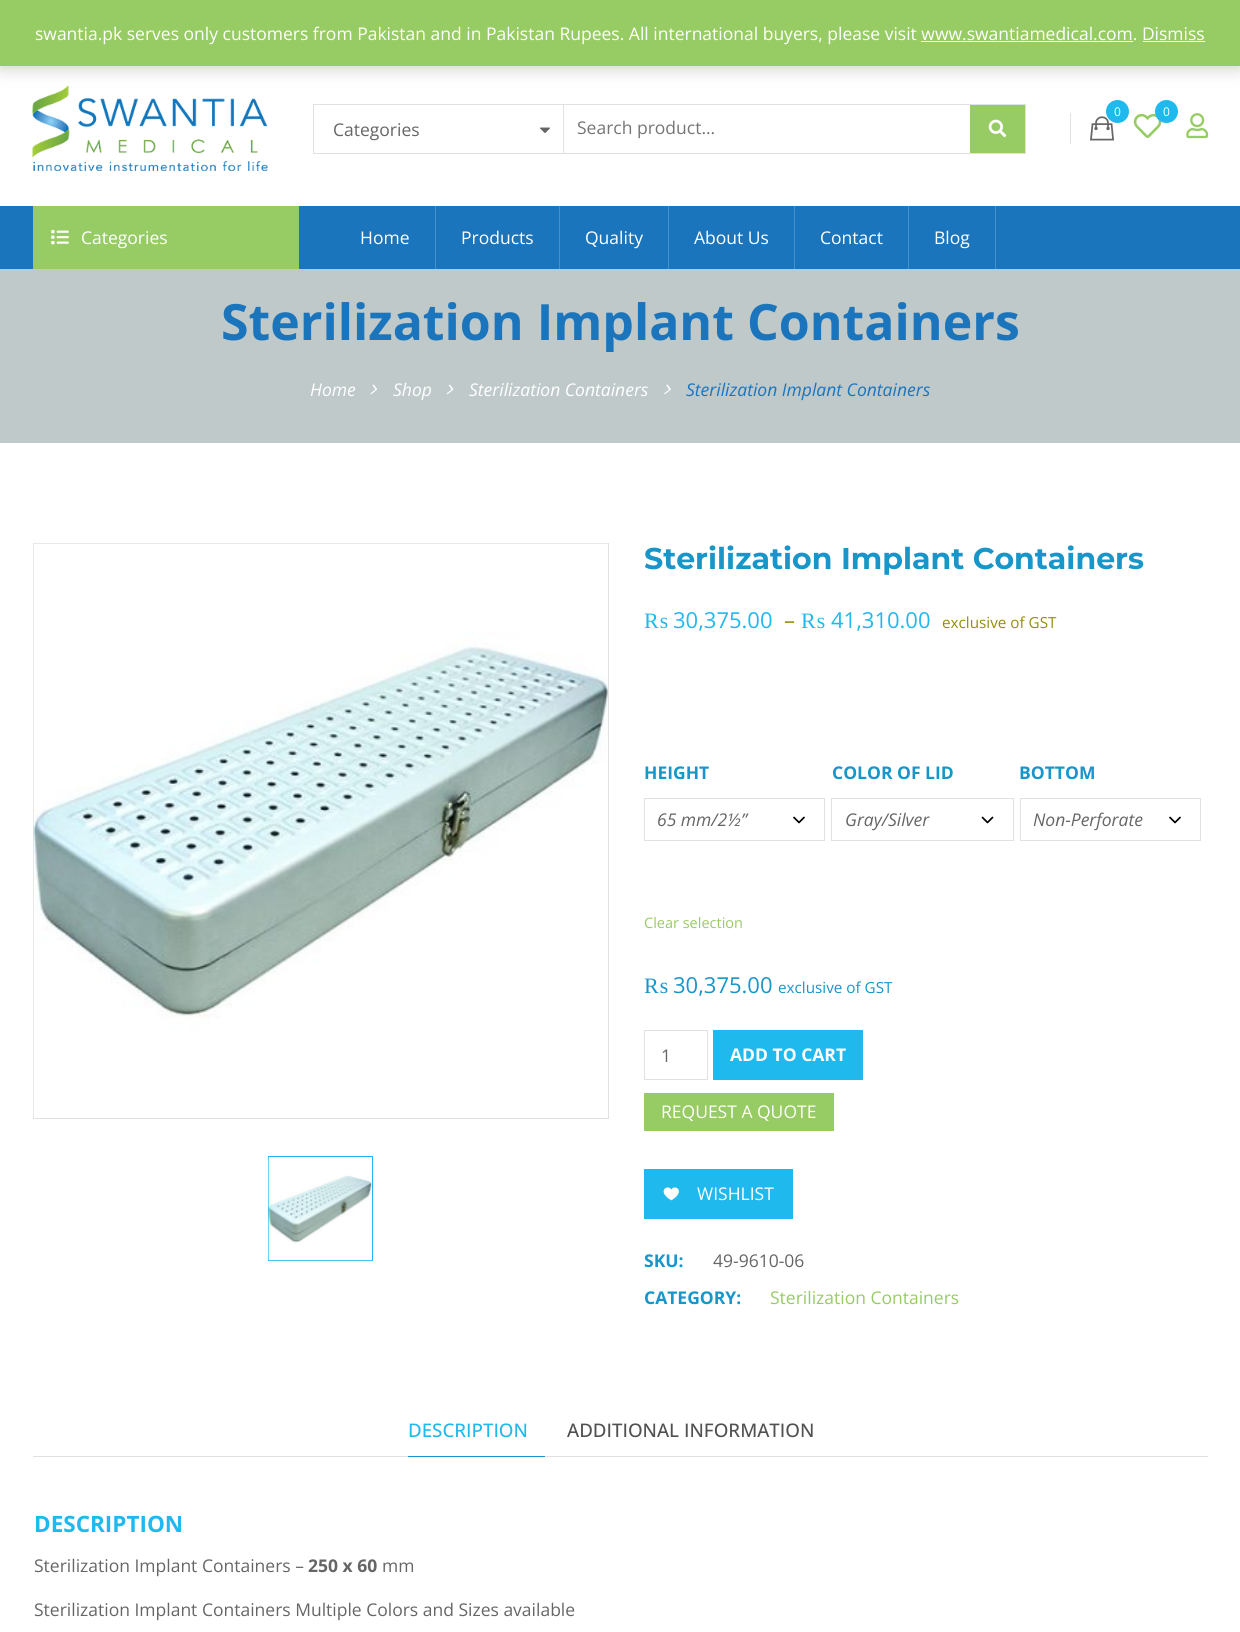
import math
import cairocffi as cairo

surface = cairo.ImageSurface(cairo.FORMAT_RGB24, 1240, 1632)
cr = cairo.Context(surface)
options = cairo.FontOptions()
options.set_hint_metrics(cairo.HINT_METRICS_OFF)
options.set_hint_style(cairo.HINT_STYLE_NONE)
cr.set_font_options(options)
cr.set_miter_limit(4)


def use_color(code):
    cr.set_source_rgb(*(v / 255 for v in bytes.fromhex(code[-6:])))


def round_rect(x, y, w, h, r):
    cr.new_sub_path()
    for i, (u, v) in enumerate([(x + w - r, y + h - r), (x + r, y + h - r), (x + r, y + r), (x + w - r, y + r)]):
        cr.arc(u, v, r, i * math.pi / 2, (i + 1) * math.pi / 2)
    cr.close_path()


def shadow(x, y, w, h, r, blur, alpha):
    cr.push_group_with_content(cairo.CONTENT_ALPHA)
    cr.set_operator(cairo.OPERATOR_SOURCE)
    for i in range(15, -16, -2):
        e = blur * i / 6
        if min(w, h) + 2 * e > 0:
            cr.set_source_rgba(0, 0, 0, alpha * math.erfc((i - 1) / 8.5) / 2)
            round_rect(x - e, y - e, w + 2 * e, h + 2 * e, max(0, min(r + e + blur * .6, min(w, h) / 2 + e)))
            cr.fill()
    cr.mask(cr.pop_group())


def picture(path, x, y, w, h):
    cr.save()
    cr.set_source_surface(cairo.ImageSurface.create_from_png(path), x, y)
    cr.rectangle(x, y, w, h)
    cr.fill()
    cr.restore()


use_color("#ffffff")
cr.paint()
picture("img1.png", 32, 86, 236, 85)
use_color("#000000")
shadow(0, 1, 1240, 67, 0, 9, 0.2)
use_color("#97cb64")
cr.rectangle(0, 0, 1240, 66)
cr.fill()
cr.select_font_face("Open Sans")
cr.set_font_size(17.5)
use_color("#ffffff")
cr.move_to(35, 40)
cr.show_text("swantia.pk serves only customers from Pakistan and in Pakistan Rupees. All international buyers, please visit www.swantiamedical.com. Dismiss")
use_color("#fcfbfe")
cr.rectangle(921, 41, 212, 1)
cr.fill()
cr.rectangle(1143, 41, 62, 1)
cr.fill()
use_color("#e1e1e1")
cr.rectangle(1070, 113, 1, 31)
cr.fill()
picture("img2.png", 1090, 116, 24, 25)
use_color("#20b9ed")
cr.arc(1117.5, 111.5, 11.5, 0, 2 * math.pi)
cr.fill()
cr.set_font_size(12)
use_color("#ffffff")
cr.move_to(1114, 116)
cr.show_text("0")
picture("img3.png", 1133, 113, 29, 25)
use_color("#20b9ed")
cr.arc(1166.5, 111.5, 11.5, 0, 2 * math.pi)
cr.fill()
use_color("#ffffff")
cr.move_to(1163, 116)
cr.show_text("0")
cr.rectangle(313.5, 104.5, 712, 49)
use_color("#e1e1e1")
cr.set_line_width(1)
cr.stroke()
cr.rectangle(563, 105, 1, 48)
cr.fill()
cr.set_font_size(17.5)
use_color("#666666")
cr.move_to(333, 136)
cr.show_text("Categories")
picture("img4.png", 540, 127, 10, 6)
use_color("#757575")
cr.move_to(577, 134)
cr.show_text("Search product...")
use_color("#97cb64")
cr.rectangle(970, 105, 55, 48)
cr.fill()
picture("img5.png", 988, 119, 19, 19)
picture("img6.png", 1186, 113, 23, 26)
use_color("#1b75bc")
cr.rectangle(0, 206, 1240, 63)
cr.fill()
use_color("#97cb64")
cr.rectangle(33, 206, 266, 63)
cr.fill()
picture("img7.png", 51, 230, 18, 15)
use_color("#ffffff")
cr.move_to(81, 244)
cr.show_text("Categories")
use_color("#4991c9")
cr.rectangle(435, 206, 1, 63)
cr.fill()
use_color("#ffffff")
cr.move_to(360, 244)
cr.show_text("Home")
use_color("#4991c9")
cr.rectangle(559, 206, 1, 63)
cr.fill()
use_color("#ffffff")
cr.move_to(461, 244)
cr.show_text("Products")
use_color("#4991c9")
cr.rectangle(668, 206, 1, 63)
cr.fill()
use_color("#ffffff")
cr.move_to(585, 244)
cr.show_text("Quality")
use_color("#4991c9")
cr.rectangle(794, 206, 1, 63)
cr.fill()
use_color("#ffffff")
cr.move_to(694, 244)
cr.show_text("About Us")
use_color("#4991c9")
cr.rectangle(908, 206, 1, 63)
cr.fill()
use_color("#ffffff")
cr.move_to(820, 244)
cr.show_text("Contact")
use_color("#4991c9")
cr.rectangle(995, 206, 1, 63)
cr.fill()
use_color("#ffffff")
cr.move_to(934, 244)
cr.show_text("Blog")
use_color("#bfc9ca")
cr.rectangle(0, 269, 1240, 174)
cr.fill()
cr.select_font_face("Open Sans", cairo.FONT_SLANT_NORMAL, cairo.FONT_WEIGHT_BOLD)
cr.set_font_size(50)
use_color("#1b75bc")
cr.move_to(221, 340)
cr.show_text("Sterilization Implant Containers")
cr.select_font_face("Open Sans", cairo.FONT_SLANT_ITALIC)
cr.set_font_size(17.5)
use_color("#ffffff")
cr.move_to(310, 396)
cr.show_text("Home")
picture("img8.png", 370, 384, 8, 11)
cr.move_to(393, 396)
cr.show_text("Shop")
picture("img9.png", 446, 384, 8, 11)
cr.move_to(469, 396)
cr.show_text("Sterilization Containers")
picture("img10.png", 664, 384, 7, 11)
use_color("#1b75bc")
cr.move_to(686, 396)
cr.show_text("Sterilization Implant Containers")
cr.rectangle(33.5, 543.5, 575, 575)
use_color("#e1e1e1")
cr.stroke()
picture("img11.png", 33, 543, 575, 574)
cr.rectangle(268.5, 1156.5, 104, 104)
use_color("#20b9ed")
cr.stroke()
picture("img12.png", 268, 1157, 104, 104)
cr.select_font_face("Montserrat", cairo.FONT_SLANT_NORMAL, cairo.FONT_WEIGHT_BOLD)
cr.set_font_size(30)
use_color("#1895c9")
cr.move_to(644, 569)
cr.show_text("Sterilization Implant Containers")
cr.select_font_face("Liberation Serif")
cr.set_font_size(22)
use_color("#20b9ed")
cr.move_to(644, 628)
cr.show_text("₨")
cr.select_font_face("Open Sans")
cr.move_to(673, 628)
cr.show_text("30,375.00")
use_color("#958e09")
cr.move_to(784, 628)
cr.show_text("–")
cr.select_font_face("Liberation Serif")
use_color("#20b9ed")
cr.move_to(801, 628)
cr.show_text("₨")
cr.select_font_face("Open Sans")
cr.move_to(831, 628)
cr.show_text("41,310.00")
cr.set_font_size(15.25)
use_color("#958e09")
cr.move_to(942, 628)
cr.show_text("exclusive of GST")
cr.select_font_face("Open Sans", cairo.FONT_SLANT_NORMAL, cairo.FONT_WEIGHT_BOLD)
cr.set_font_size(17.5)
use_color("#1895c9")
cr.move_to(644, 779)
cr.show_text("HEIGHT")
cr.new_path()
cr.move_to(794, 817.5)
cr.line_to(799, 822.5)
cr.line_to(804, 817.5)
use_color("#000000")
cr.set_line_width(1.7)
cr.set_line_cap(cairo.LINE_CAP_ROUND)
cr.set_line_join(cairo.LINE_JOIN_ROUND)
cr.stroke()
cr.rectangle(644.5, 798.5, 180, 42)
use_color("#e1e1e1")
cr.set_line_width(1)
cr.set_line_cap(cairo.LINE_CAP_BUTT)
cr.set_line_join(cairo.LINE_JOIN_MITER)
cr.stroke()
cr.select_font_face("Open Sans", cairo.FONT_SLANT_ITALIC)
use_color("#666666")
cr.move_to(657, 826)
cr.show_text("65 mm/2½”")
cr.select_font_face("Open Sans", cairo.FONT_SLANT_NORMAL, cairo.FONT_WEIGHT_BOLD)
use_color("#1895c9")
cr.move_to(832, 779)
cr.show_text("COLOR OF LID")
cr.new_path()
cr.move_to(982.5, 817.5)
cr.line_to(987.5, 822.5)
cr.line_to(992.5, 817.5)
use_color("#000000")
cr.set_line_width(1.7)
cr.set_line_cap(cairo.LINE_CAP_ROUND)
cr.set_line_join(cairo.LINE_JOIN_ROUND)
cr.stroke()
cr.rectangle(831.5, 798.5, 182, 42)
use_color("#e1e1e1")
cr.set_line_width(1)
cr.set_line_cap(cairo.LINE_CAP_BUTT)
cr.set_line_join(cairo.LINE_JOIN_MITER)
cr.stroke()
cr.select_font_face("Open Sans", cairo.FONT_SLANT_ITALIC)
use_color("#666666")
cr.move_to(845, 826)
cr.show_text("Gray/Silver")
cr.select_font_face("Open Sans", cairo.FONT_SLANT_NORMAL, cairo.FONT_WEIGHT_BOLD)
use_color("#1895c9")
cr.move_to(1019, 779)
cr.show_text("BOTTOM")
cr.new_path()
cr.move_to(1170, 817.5)
cr.line_to(1175, 822.5)
cr.line_to(1180, 817.5)
use_color("#000000")
cr.set_line_width(1.7)
cr.set_line_cap(cairo.LINE_CAP_ROUND)
cr.set_line_join(cairo.LINE_JOIN_ROUND)
cr.stroke()
cr.rectangle(1020.5, 798.5, 180, 42)
use_color("#e1e1e1")
cr.set_line_width(1)
cr.set_line_cap(cairo.LINE_CAP_BUTT)
cr.set_line_join(cairo.LINE_JOIN_MITER)
cr.stroke()
cr.select_font_face("Open Sans", cairo.FONT_SLANT_ITALIC)
use_color("#666666")
cr.move_to(1033, 826)
cr.show_text("Non-Perforate")
cr.select_font_face("Open Sans")
cr.set_font_size(14.5)
use_color("#97cb64")
cr.move_to(644, 928)
cr.show_text("Clear selection")
cr.select_font_face("Liberation Serif")
cr.set_font_size(22)
use_color("#1895c9")
cr.move_to(644, 993)
cr.show_text("₨")
cr.select_font_face("Open Sans")
cr.move_to(673, 993)
cr.show_text("30,375.00")
cr.set_font_size(15.25)
cr.move_to(778, 993)
cr.show_text("exclusive of GST")
cr.rectangle(644.5, 1030.5, 63, 49)
use_color("#e1e1e1")
cr.stroke()
cr.set_font_size(17.5)
use_color("#666666")
cr.move_to(661, 1062)
cr.show_text("1")
use_color("#20b9ed")
cr.rectangle(713, 1030, 150, 50)
cr.fill()
cr.select_font_face("Open Sans", cairo.FONT_SLANT_NORMAL, cairo.FONT_WEIGHT_BOLD)
use_color("#ffffff")
cr.move_to(730, 1061)
cr.show_text("ADD TO CART")
use_color("#97cb64")
cr.rectangle(644, 1093, 190, 38)
cr.fill()
cr.select_font_face("Open Sans")
use_color("#ffffff")
cr.move_to(661, 1118)
cr.show_text("REQUEST A QUOTE")
use_color("#20b9ed")
cr.rectangle(644, 1169, 149, 50)
cr.fill()
picture("img13.png", 663, 1187, 16, 14)
use_color("#ffffff")
cr.move_to(697, 1200)
cr.show_text("WISHLIST")
cr.select_font_face("Open Sans", cairo.FONT_SLANT_NORMAL, cairo.FONT_WEIGHT_BOLD)
use_color("#1895c9")
cr.move_to(644, 1267)
cr.show_text("SKU:")
cr.select_font_face("Open Sans")
use_color("#666666")
cr.move_to(713, 1267)
cr.show_text("49-9610-06")
cr.select_font_face("Open Sans", cairo.FONT_SLANT_NORMAL, cairo.FONT_WEIGHT_BOLD)
use_color("#1895c9")
cr.move_to(644, 1304)
cr.show_text("CATEGORY:")
cr.select_font_face("Open Sans")
use_color("#97cb64")
cr.move_to(770, 1304)
cr.show_text("Sterilization Containers")
use_color("#e1e1e1")
cr.rectangle(33, 1456, 1175, 1)
cr.fill()
use_color("#1895c9")
cr.rectangle(408, 1456, 137, 1)
cr.fill()
cr.select_font_face("Open Sans Medium")
cr.set_font_size(18.75)
use_color("#20b9ed")
cr.move_to(408, 1437)
cr.show_text("DESCRIPTION")
use_color("#515151")
cr.move_to(567, 1437)
cr.show_text("ADDITIONAL INFORMATION")
cr.select_font_face("Open Sans", cairo.FONT_SLANT_NORMAL, cairo.FONT_WEIGHT_BOLD)
cr.set_font_size(22.5)
use_color("#20b9ed")
cr.move_to(34, 1532)
cr.show_text("DESCRIPTION")
cr.select_font_face("Open Sans")
cr.set_font_size(17.5)
use_color("#666666")
cr.move_to(34, 1572)
cr.show_text("Sterilization Implant Containers –")
cr.select_font_face("Open Sans", cairo.FONT_SLANT_NORMAL, cairo.FONT_WEIGHT_BOLD)
cr.move_to(308, 1572)
cr.show_text("250 x 60")
cr.select_font_face("Open Sans")
cr.move_to(382, 1572)
cr.show_text("mm")
cr.move_to(34, 1616)
cr.show_text("Sterilization Implant Containers Multiple Colors and Sizes available")
surface.write_to_png("result.png")
